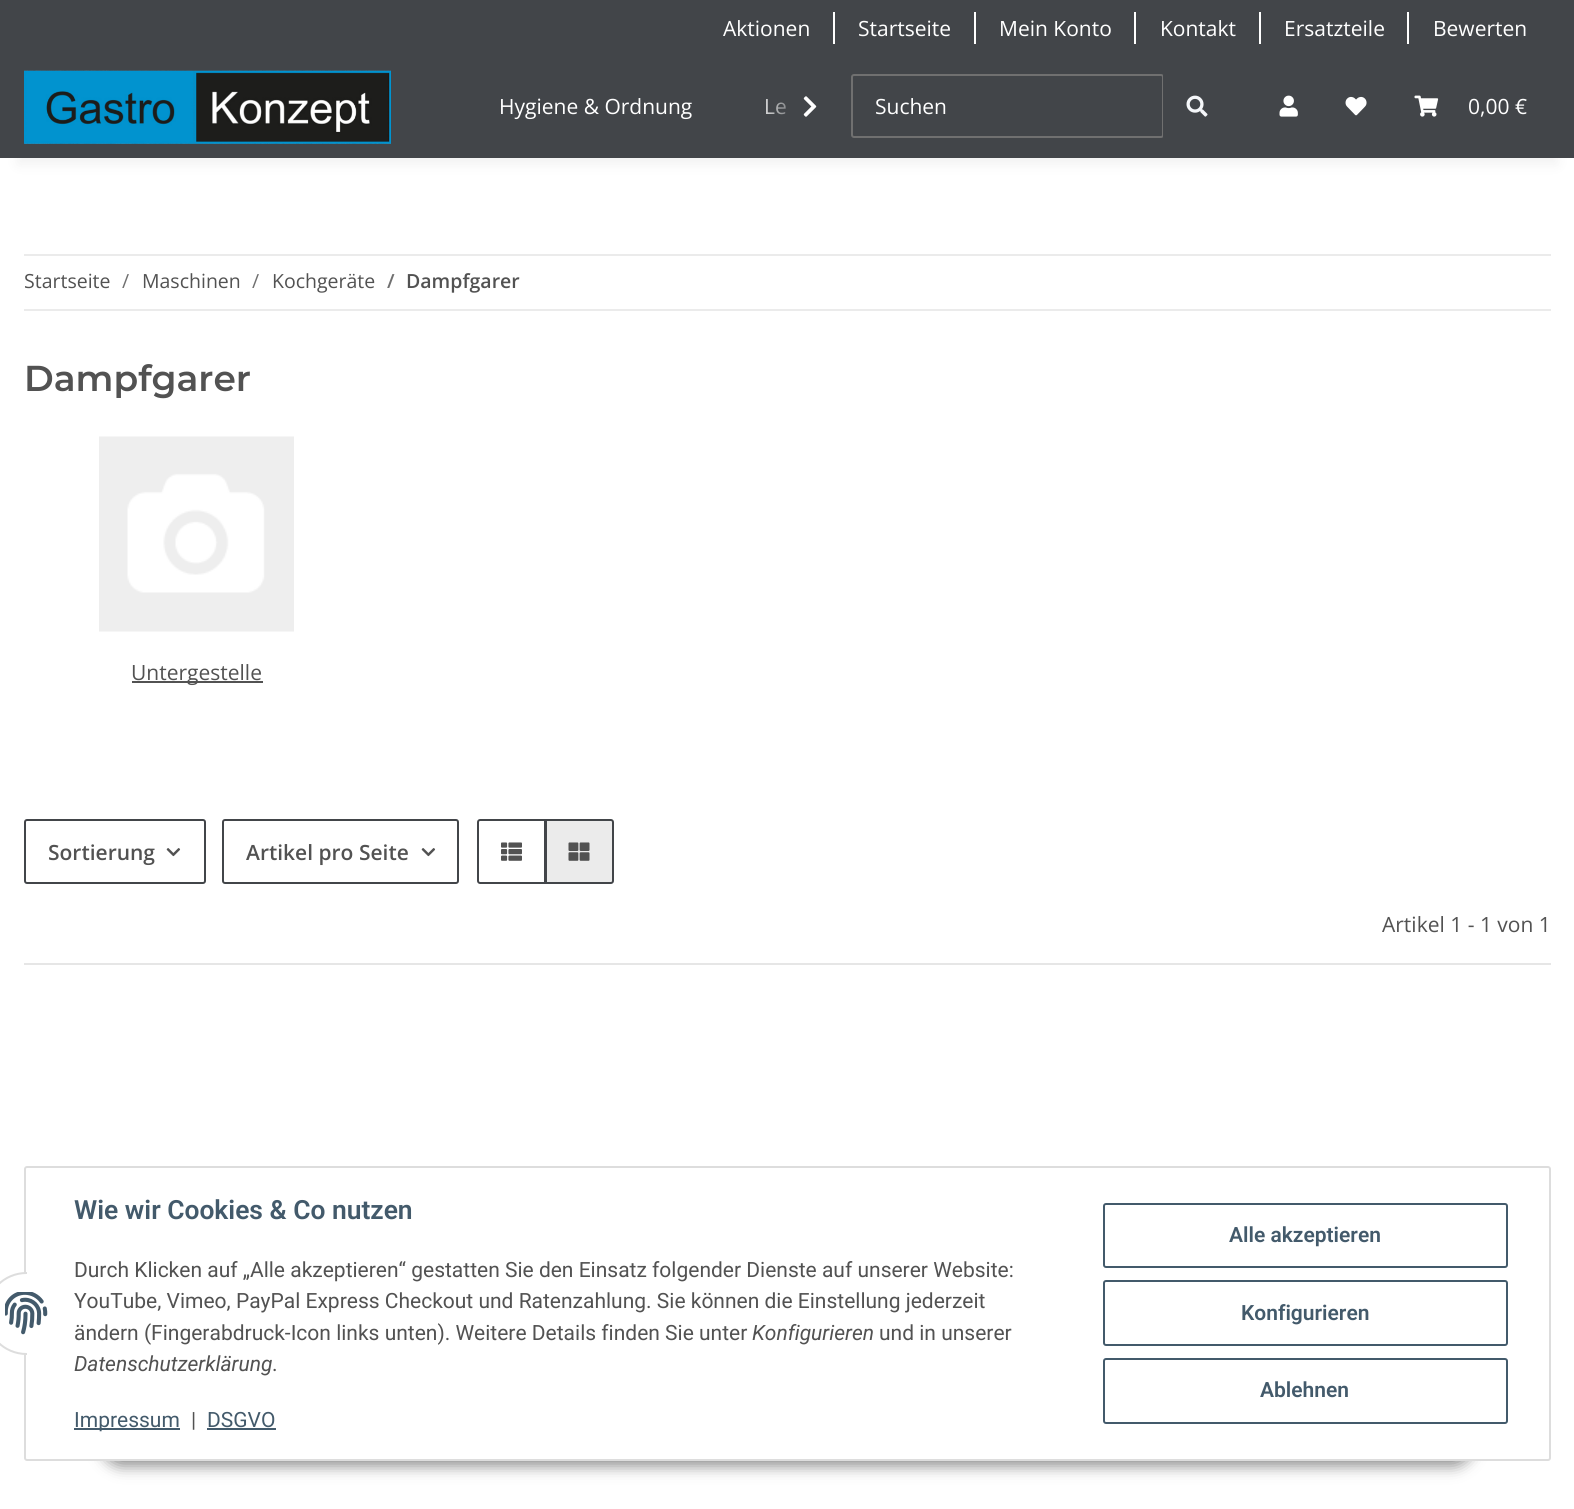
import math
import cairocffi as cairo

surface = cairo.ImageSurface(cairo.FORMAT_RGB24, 1574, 1509)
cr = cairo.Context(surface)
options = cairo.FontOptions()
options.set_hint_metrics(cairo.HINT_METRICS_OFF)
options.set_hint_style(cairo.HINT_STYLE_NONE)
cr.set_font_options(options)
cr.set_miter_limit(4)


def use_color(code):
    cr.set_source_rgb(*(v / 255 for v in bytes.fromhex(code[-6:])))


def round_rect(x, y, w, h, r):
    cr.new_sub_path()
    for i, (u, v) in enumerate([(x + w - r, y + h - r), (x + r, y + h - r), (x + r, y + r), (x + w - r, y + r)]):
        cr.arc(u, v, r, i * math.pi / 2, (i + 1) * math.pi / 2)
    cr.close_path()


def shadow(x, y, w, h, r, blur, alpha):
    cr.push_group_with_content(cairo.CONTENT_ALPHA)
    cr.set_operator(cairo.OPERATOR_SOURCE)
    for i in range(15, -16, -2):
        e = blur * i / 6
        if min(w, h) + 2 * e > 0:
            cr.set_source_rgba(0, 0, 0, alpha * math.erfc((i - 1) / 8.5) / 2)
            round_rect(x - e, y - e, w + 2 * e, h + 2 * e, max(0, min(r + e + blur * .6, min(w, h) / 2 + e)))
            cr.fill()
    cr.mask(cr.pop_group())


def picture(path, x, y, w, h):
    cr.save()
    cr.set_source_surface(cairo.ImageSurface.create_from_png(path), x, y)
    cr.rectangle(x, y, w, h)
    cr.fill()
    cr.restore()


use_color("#ffffff")
cr.paint()
use_color("#000000")
shadow(18, 98, 1539, 66, 0, 7, 0.06)
use_color("#424549")
cr.rectangle(0, 0, 1574, 158)
cr.fill()
cr.select_font_face("Open Sans")
cr.set_font_size(21)
use_color("#ffffff")
cr.move_to(723, 36)
cr.show_text("Aktionen")
cr.rectangle(833, 12, 2, 32)
cr.fill()
cr.move_to(858, 36)
cr.show_text("Startseite")
cr.rectangle(974, 12, 2, 32)
cr.fill()
cr.move_to(999, 36)
cr.show_text("Mein Konto")
cr.rectangle(1134, 12, 2, 32)
cr.fill()
cr.move_to(1160, 36)
cr.show_text("Kontakt")
cr.rectangle(1259, 12, 2, 32)
cr.fill()
cr.move_to(1284, 36)
cr.show_text("Ersatzteile")
cr.rectangle(1407, 12, 2, 32)
cr.fill()
cr.move_to(1433, 36)
cr.show_text("Bewerten")
picture("img1.png", 24, 70, 367, 74)
cr.move_to(499, 114)
cr.show_text("Hygiene & Ordnung")
cr.move_to(764, 114)
cr.show_text("Le")
gradient = cairo.LinearGradient(755, 107, 827, 107)
gradient.add_color_stop_rgba(0, 0.259, 0.271, 0.286, 0.01)
gradient.add_color_stop_rgba(0.7, 0.259, 0.271, 0.286, 1)
cr.set_source(gradient)
cr.rectangle(766, 99, 20, 16)
cr.fill()
picture("img2.png", 803, 96, 14, 21)
round_rect(852, 75, 311, 62, 2)
use_color("#707070")
cr.stroke()
use_color("#ffffff")
cr.move_to(875, 114)
cr.show_text("Suchen")
use_color("#424549")
cr.rectangle(1163, 75, 1, 62)
cr.fill()
picture("img3.png", 1186, 95, 22, 22)
picture("img4.png", 1279, 95, 19, 22)
picture("img5.png", 1345, 96, 22, 20)
picture("img6.png", 1414, 95, 25, 22)
use_color("#ffffff")
cr.move_to(1468, 114)
cr.show_text("0,00 €")
use_color("#ebebeb")
cr.rectangle(24, 254, 1527, 2)
cr.fill()
cr.rectangle(24, 309, 1527, 2)
cr.fill()
cr.set_font_size(19.5)
use_color("#525252")
cr.move_to(24, 288)
cr.show_text("Startseite")
use_color("#707070")
cr.move_to(122, 288)
cr.show_text("/")
use_color("#525252")
cr.move_to(142, 288)
cr.show_text("Maschinen")
use_color("#707070")
cr.move_to(252, 288)
cr.show_text("/")
use_color("#525252")
cr.move_to(272, 288)
cr.show_text("Kochgeräte")
cr.select_font_face("Open Sans SemiBold")
use_color("#707070")
cr.move_to(387, 288)
cr.show_text("/")
use_color("#525252")
cr.move_to(406, 288)
cr.show_text("Dampfgarer")
cr.select_font_face("Montserrat SemiBold")
cr.set_font_size(36)
cr.move_to(24, 391)
cr.show_text("Dampfgarer")
picture("img7.png", 99, 436, 195, 196)
cr.rectangle(132, 681, 131, 2)
cr.fill()
cr.select_font_face("Open Sans")
cr.set_font_size(21)
cr.move_to(131, 680)
cr.show_text("Untergestelle")
round_rect(25, 820, 180, 63, 2)
use_color("#424549")
cr.stroke()
cr.select_font_face("Open Sans SemiBold")
use_color("#525252")
cr.move_to(48, 860)
cr.show_text("Sortierung")
picture("img8.png", 166, 848, 15, 9)
round_rect(223, 820, 235, 63, 2)
use_color("#424549")
cr.stroke()
use_color("#525252")
cr.move_to(246, 860)
cr.show_text("Artikel pro Seite")
picture("img8.png", 421, 848, 15, 9)
cr.new_path()
cr.move_to(480, 820)
cr.line_to(545, 820)
cr.line_to(545, 883)
cr.line_to(480, 883)
cr.curve_to(479, 883, 478, 882, 478, 881)
cr.line_to(478, 822)
cr.curve_to(478, 821, 479, 820, 480, 820)
cr.close_path()
use_color("#424549")
cr.stroke()
picture("img9.png", 501, 842, 21, 19)
use_color("#ebebeb")
cr.new_path()
cr.move_to(546, 820)
cr.line_to(611, 820)
cr.curve_to(612, 820, 613, 821, 613, 822)
cr.line_to(613, 881)
cr.curve_to(613, 882, 612, 883, 611, 883)
cr.line_to(546, 883)
cr.close_path()
cr.fill_preserve()
use_color("#424549")
cr.stroke()
picture("img10.png", 568, 842, 22, 19)
cr.select_font_face("Open Sans")
use_color("#525252")
cr.move_to(1382, 932)
cr.show_text("Artikel 1 - 1 von 1")
use_color("#e6e6e6")
cr.rectangle(24, 963, 1527, 2)
cr.fill()
use_color("#000000")
shadow(102, 1418, 1371, 48, 24, 7.5, 0.45)
use_color("#ffffff")
round_rect(25, 1167, 1525, 293, 2)
cr.fill_preserve()
use_color("#dddddd")
cr.stroke()
use_color("#ffffff")
cr.arc(26.5, 1313.5, 40.5, 0, 2 * math.pi)
cr.fill_preserve()
use_color("#dddddd")
cr.stroke()
use_color("#ffffff")
cr.rectangle(27, 1272, 41, 83)
cr.fill()
picture("img11.png", 5, 1292, 43, 43)
cr.select_font_face("Roboto SemiBold")
cr.set_font_size(26.4)
use_color("#435a6b")
cr.move_to(74, 1219)
cr.show_text("Wie wir Cookies & Co nutzen")
cr.select_font_face("Roboto")
cr.set_font_size(21)
use_color("#525252")
cr.move_to(74, 1277)
cr.show_text("Durch Klicken auf „Alle akzeptieren“ gestatten Sie den Einsatz folgender Dienste auf unserer Website:")
cr.move_to(74, 1308)
cr.show_text("YouTube, Vimeo, PayPal Express Checkout und Ratenzahlung. Sie können die Einstellung jederzeit")
cr.move_to(74, 1340)
cr.show_text("ändern (Fingerabdruck-Icon links unten). Weitere Details finden Sie unter")
cr.select_font_face("Roboto", cairo.FONT_SLANT_ITALIC)
cr.move_to(752, 1340)
cr.show_text("Konfigurieren")
cr.select_font_face("Roboto")
cr.move_to(879, 1340)
cr.show_text("und in unserer")
cr.select_font_face("Roboto", cairo.FONT_SLANT_ITALIC)
cr.move_to(74, 1371)
cr.show_text("Datenschutzerklärung")
cr.select_font_face("Roboto")
cr.move_to(272, 1371)
cr.show_text(".")
use_color("#435a6b")
cr.rectangle(74, 1428, 106, 2)
cr.fill()
cr.move_to(74, 1427)
cr.show_text("Impressum")
use_color("#525252")
cr.move_to(191, 1427)
cr.show_text("|")
use_color("#435a6b")
cr.move_to(207, 1427)
cr.show_text("DSGVO")
cr.rectangle(207, 1428, 69, 2)
cr.fill()
round_rect(1104, 1204, 403, 63, 2)
cr.stroke()
cr.select_font_face("Roboto SemiBold")
cr.move_to(1229, 1242)
cr.show_text("Alle akzeptieren")
round_rect(1104, 1281, 403, 64, 2)
cr.stroke()
cr.move_to(1241, 1320)
cr.show_text("Konfigurieren")
round_rect(1104, 1359, 403, 64, 2)
cr.stroke()
cr.move_to(1260, 1397)
cr.show_text("Ablehnen")
surface.write_to_png("result.png")
